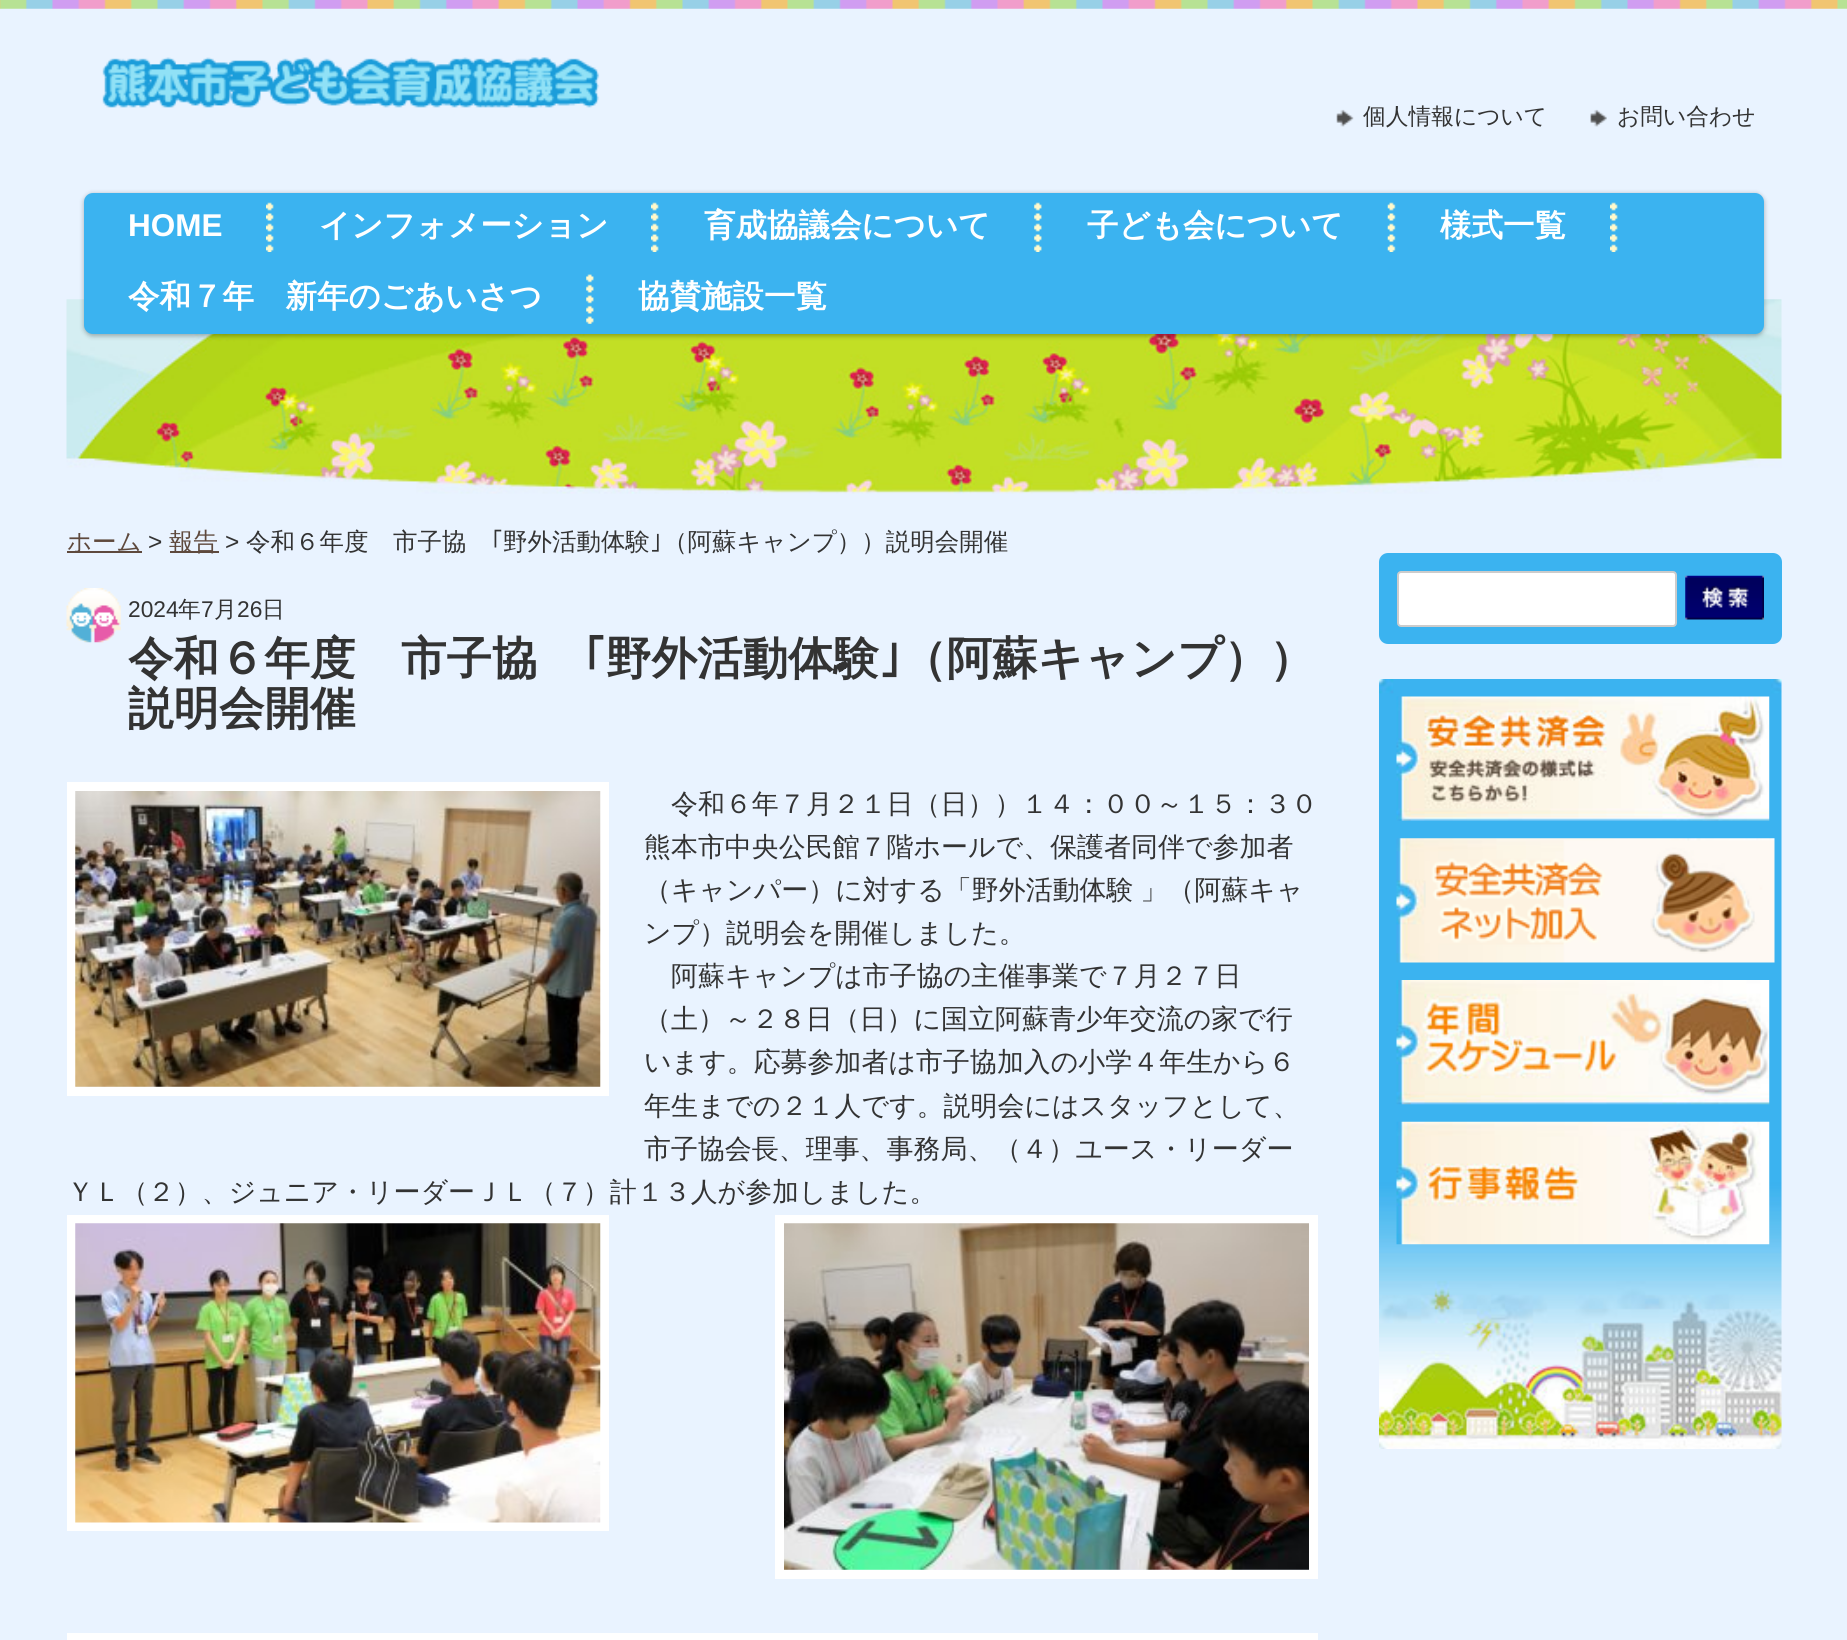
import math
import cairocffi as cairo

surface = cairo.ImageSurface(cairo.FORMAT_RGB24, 1847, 1640)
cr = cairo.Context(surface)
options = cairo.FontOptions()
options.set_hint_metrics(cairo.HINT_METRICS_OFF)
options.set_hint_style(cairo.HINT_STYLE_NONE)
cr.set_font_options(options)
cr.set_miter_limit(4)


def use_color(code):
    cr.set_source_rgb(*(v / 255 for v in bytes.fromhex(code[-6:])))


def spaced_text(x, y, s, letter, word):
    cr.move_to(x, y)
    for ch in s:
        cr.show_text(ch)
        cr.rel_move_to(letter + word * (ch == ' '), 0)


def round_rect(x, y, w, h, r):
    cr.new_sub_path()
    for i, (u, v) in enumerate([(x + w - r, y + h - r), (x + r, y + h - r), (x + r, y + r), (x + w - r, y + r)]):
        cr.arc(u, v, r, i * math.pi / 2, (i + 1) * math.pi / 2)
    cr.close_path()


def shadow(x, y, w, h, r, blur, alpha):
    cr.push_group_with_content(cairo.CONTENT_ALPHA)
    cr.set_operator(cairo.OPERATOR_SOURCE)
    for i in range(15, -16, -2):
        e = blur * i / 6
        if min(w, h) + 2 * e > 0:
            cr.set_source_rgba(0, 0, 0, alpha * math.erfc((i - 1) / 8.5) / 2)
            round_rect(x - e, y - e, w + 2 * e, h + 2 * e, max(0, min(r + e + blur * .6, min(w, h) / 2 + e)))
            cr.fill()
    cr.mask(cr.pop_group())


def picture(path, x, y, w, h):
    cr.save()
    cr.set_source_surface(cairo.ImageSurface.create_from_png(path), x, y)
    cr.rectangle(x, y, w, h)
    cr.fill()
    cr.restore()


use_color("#e9f3ff")
cr.paint()
picture("img1.png", 0, 0, 1847, 9)
picture("img2.png", 102, 57, 498, 51)
picture("img3.png", 1336, 109, 18, 18)
cr.select_font_face("WenQuanYi Zen Hei Medium")
cr.set_font_size(22.75)
use_color("#333333")
cr.move_to(1363, 124)
cr.show_text("個人情報について")
picture("img4.png", 1590, 109, 17, 18)
cr.move_to(1617, 124)
cr.show_text("お問い合わせ")
picture("img9.png", 66, 299, 1716, 195)
use_color("#000000")
shadow(84, 194, 1680, 142, 9, 2.5, 0.3)
use_color("#3bb3f0")
round_rect(84, 193, 1680, 141, 9)
cr.fill()
picture("img5.png", 266, 202, 8, 50)
cr.select_font_face("Liberation Sans", cairo.FONT_SLANT_NORMAL, cairo.FONT_WEIGHT_BOLD)
cr.set_font_size(31.5)
use_color("#ffffff")
cr.move_to(128, 236)
cr.show_text("HOME")
picture("img5.png", 651, 202, 8, 50)
cr.select_font_face("WenQuanYi Zen Hei", cairo.FONT_SLANT_NORMAL, cairo.FONT_WEIGHT_BOLD)
cr.move_to(319, 236)
cr.show_text("インフォメーション")
picture("img6.png", 1034, 202, 8, 50)
cr.move_to(704, 236)
cr.show_text("育成協議会について")
picture("img7.png", 1387, 202, 9, 50)
cr.move_to(1087, 236)
cr.show_text("子ども会について")
picture("img5.png", 1610, 202, 8, 50)
cr.move_to(1440, 236)
cr.show_text("様式一覧")
picture("img8.png", 586, 274, 8, 50)
cr.move_to(128, 307)
cr.show_text("令和７年　新年のごあいさつ")
cr.move_to(638, 307)
cr.show_text("協賛施設一覧")
use_color("#5e493d")
cr.rectangle(67, 551, 75, 2)
cr.fill()
cr.select_font_face("WenQuanYi Zen Hei Medium")
cr.set_font_size(24.5)
cr.move_to(67, 550)
cr.show_text("ホーム")
cr.select_font_face("Liberation Sans")
use_color("#333333")
cr.move_to(148, 550)
cr.show_text(">")
use_color("#5e493d")
cr.rectangle(170, 551, 49, 2)
cr.fill()
cr.select_font_face("WenQuanYi Zen Hei Medium")
cr.move_to(169, 550)
cr.show_text("報告")
cr.select_font_face("Liberation Sans")
use_color("#333333")
cr.move_to(225, 550)
cr.show_text(">")
cr.select_font_face("WenQuanYi Zen Hei Medium")
cr.move_to(246, 550)
cr.show_text("令和６年度　市子協")
cr.select_font_face("IPAPGothic")
cr.move_to(491, 550)
cr.show_text("｢")
cr.select_font_face("WenQuanYi Zen Hei Medium")
cr.move_to(503, 550)
cr.show_text("野外活動体験")
cr.select_font_face("IPAPGothic")
cr.move_to(650, 550)
cr.show_text("｣")
cr.select_font_face("WenQuanYi Zen Hei Medium")
cr.move_to(663, 550)
cr.show_text("（阿蘇キャンプ））説明会開催")
picture("img10.png", 66, 588, 55, 55)
cr.select_font_face("Liberation Sans")
cr.set_font_size(22.75)
cr.move_to(128, 617)
cr.show_text("2024")
cr.select_font_face("WenQuanYi Zen Hei Medium")
cr.move_to(178, 617)
cr.show_text("年")
cr.select_font_face("Liberation Sans")
cr.move_to(201, 617)
cr.show_text("7")
cr.select_font_face("WenQuanYi Zen Hei Medium")
cr.move_to(214, 617)
cr.show_text("月")
cr.select_font_face("Liberation Sans")
cr.move_to(237, 617)
cr.show_text("26")
cr.select_font_face("WenQuanYi Zen Hei Medium")
cr.move_to(262, 617)
cr.show_text("日")
cr.select_font_face("WenQuanYi Zen Hei", cairo.FONT_SLANT_NORMAL, cairo.FONT_WEIGHT_BOLD)
cr.set_font_size(45.5)
cr.move_to(128, 674)
cr.show_text("令和６年度　市子協")
cr.select_font_face("IPAPGothic", cairo.FONT_SLANT_NORMAL, cairo.FONT_WEIGHT_BOLD)
cr.move_to(583, 674)
cr.show_text("｢")
cr.select_font_face("WenQuanYi Zen Hei", cairo.FONT_SLANT_NORMAL, cairo.FONT_WEIGHT_BOLD)
cr.move_to(606, 674)
cr.show_text("野外活動体験")
cr.select_font_face("IPAPGothic", cairo.FONT_SLANT_NORMAL, cairo.FONT_WEIGHT_BOLD)
cr.move_to(879, 674)
cr.show_text("｣")
cr.select_font_face("WenQuanYi Zen Hei", cairo.FONT_SLANT_NORMAL, cairo.FONT_WEIGHT_BOLD)
cr.move_to(901, 674)
cr.show_text("（阿蘇キャンプ））")
cr.move_to(128, 724)
cr.show_text("説明会開催")
cr.rectangle(71.5, 786.5, 533, 305)
use_color("#ffffff")
cr.set_line_width(9)
cr.stroke()
picture("img11.png", 75, 791, 526, 296)
cr.select_font_face("WenQuanYi Zen Hei Medium")
cr.set_font_size(26.95)
use_color("#333333")
cr.move_to(671, 813)
cr.show_text("令和６年７月２１日（日））１４：００～１５：３０")
cr.move_to(644, 856)
cr.show_text("熊本市中央公民館７階ホールで、保護者同伴で参加者")
spaced_text(644, 899, "（キャンパー）に対する「野外活動体験 」（阿蘇キャ", 0, -1)
cr.move_to(644, 942)
cr.show_text("ンプ）説明会を開催しました。")
cr.move_to(671, 985)
cr.show_text("阿蘇キャンプは市子協の主催事業で７月２７日")
cr.move_to(644, 1028)
cr.show_text("（土）～２８日（日）に国立阿蘇青少年交流の家で行")
cr.move_to(644, 1071)
cr.show_text("います。応募参加者は市子協加入の小学４年生から６")
cr.move_to(644, 1115)
cr.show_text("年生までの２１人です。説明会にはスタッフとして、")
cr.move_to(644, 1158)
cr.show_text("市子協会長、理事、事務局、（４）ユース・リーダー")
cr.move_to(67, 1201)
cr.show_text("ＹＬ（２）、ジュニア・リーダーＪＬ（７）計１３人が参加しました。")
cr.rectangle(71.5, 1219.5, 533, 307)
use_color("#ffffff")
cr.stroke()
cr.rectangle(779.5, 1219.5, 534, 355)
cr.stroke()
picture("img12.png", 784, 1223, 525, 347)
picture("img13.png", 75, 1223, 526, 300)
cr.rectangle(71.5, 1637.5, 1242, 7)
cr.stroke()
use_color("#3bb3f0")
round_rect(1379, 553, 403, 91, 9)
cr.fill()
use_color("#ffffff")
round_rect(1398, 572, 278, 54, 3)
cr.fill_preserve()
use_color("#cccccc")
cr.set_line_width(2)
cr.stroke()
picture("img14.png", 1685, 575, 79, 45)
picture("img15.png", 1379, 679, 403, 770)
picture("img16.png", 1396, 696, 374, 125)
picture("img17.png", 1396, 838, 379, 125)
picture("img18.png", 1396, 980, 374, 125)
picture("img19.png", 1396, 1121, 374, 124)
surface.write_to_png("result.png")
